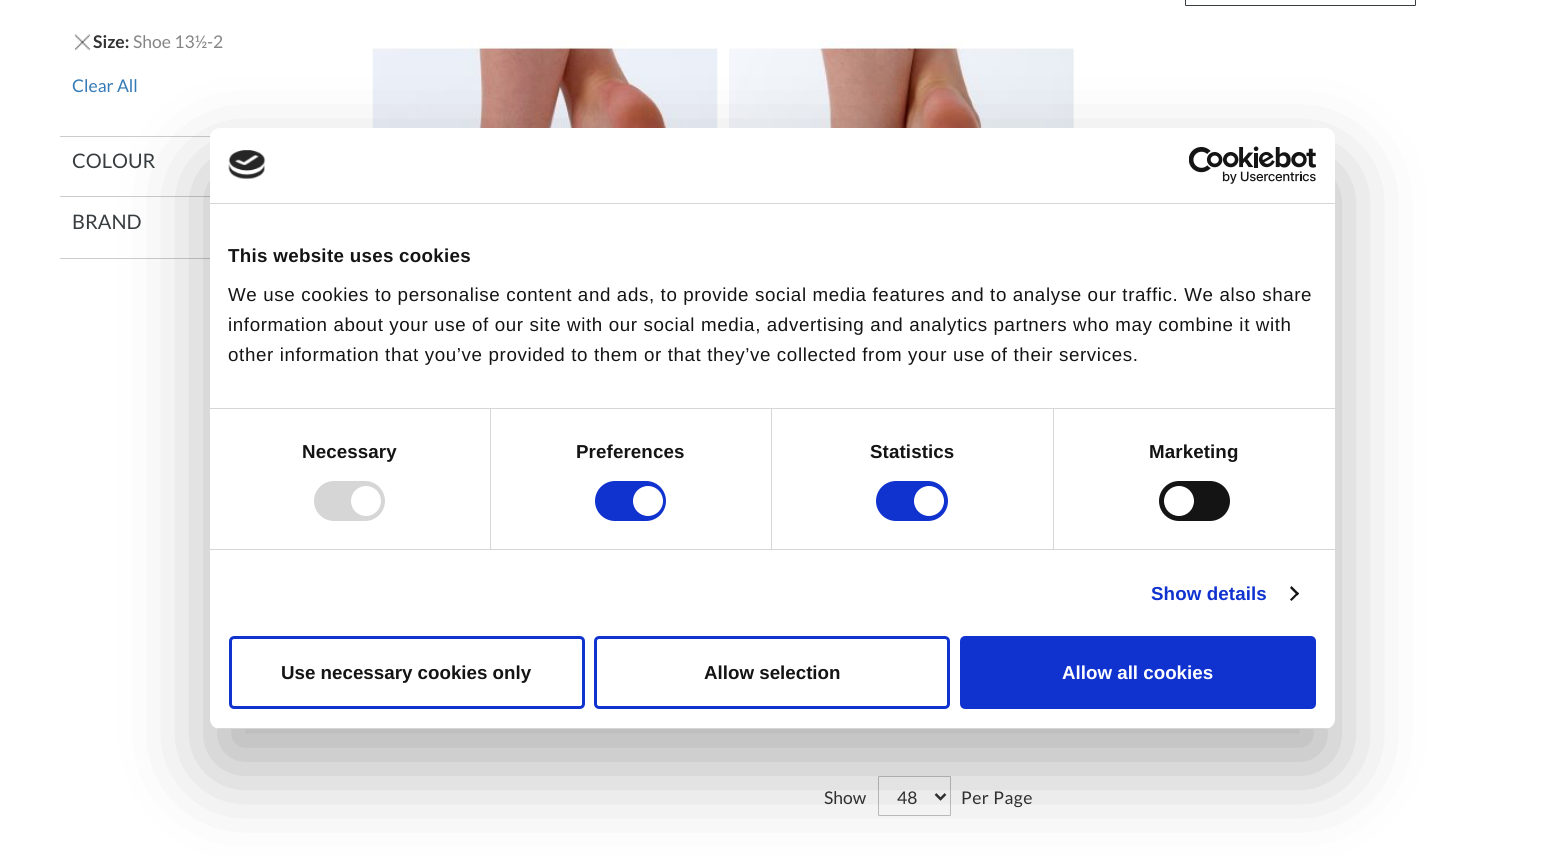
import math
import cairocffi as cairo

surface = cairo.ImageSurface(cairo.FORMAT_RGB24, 1543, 856)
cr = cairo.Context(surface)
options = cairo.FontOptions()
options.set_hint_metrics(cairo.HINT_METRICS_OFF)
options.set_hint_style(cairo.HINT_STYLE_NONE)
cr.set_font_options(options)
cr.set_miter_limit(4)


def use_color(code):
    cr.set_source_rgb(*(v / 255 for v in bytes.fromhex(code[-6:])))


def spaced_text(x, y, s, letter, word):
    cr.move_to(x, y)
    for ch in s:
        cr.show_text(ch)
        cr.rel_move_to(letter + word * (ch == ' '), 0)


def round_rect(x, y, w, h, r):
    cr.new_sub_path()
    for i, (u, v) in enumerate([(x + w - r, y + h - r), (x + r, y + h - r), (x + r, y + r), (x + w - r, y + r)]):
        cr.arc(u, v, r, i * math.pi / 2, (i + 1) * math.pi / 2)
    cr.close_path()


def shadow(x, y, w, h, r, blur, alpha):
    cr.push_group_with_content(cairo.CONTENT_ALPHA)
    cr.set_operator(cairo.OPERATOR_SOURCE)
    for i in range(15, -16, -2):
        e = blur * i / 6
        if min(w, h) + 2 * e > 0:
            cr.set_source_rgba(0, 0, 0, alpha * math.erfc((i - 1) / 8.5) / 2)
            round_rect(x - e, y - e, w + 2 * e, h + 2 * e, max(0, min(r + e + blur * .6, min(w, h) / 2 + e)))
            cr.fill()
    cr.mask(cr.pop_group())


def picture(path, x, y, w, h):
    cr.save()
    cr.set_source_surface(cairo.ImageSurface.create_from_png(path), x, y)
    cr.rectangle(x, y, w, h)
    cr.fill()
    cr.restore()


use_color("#ffffff")
cr.paint()
picture("img1.png", 74, 34, 17, 17)
cr.select_font_face("Lato", cairo.FONT_SLANT_NORMAL, cairo.FONT_WEIGHT_BOLD)
cr.set_font_size(17.5)
use_color("#333333")
cr.move_to(93, 48)
cr.show_text("Size:")
cr.select_font_face("Lato")
use_color("#858585")
cr.move_to(133, 48)
cr.show_text("Shoe 13½-2")
use_color("#337ab7")
cr.move_to(72, 92)
cr.show_text("Clear All")
use_color("#cccccc")
cr.rectangle(60, 136, 151, 1)
cr.fill()
cr.rectangle(60, 196, 150, 1)
cr.fill()
cr.set_font_size(20)
use_color("#383d40")
cr.move_to(72, 168)
cr.show_text("COLOUR")
use_color("#cccccc")
cr.rectangle(60, 258, 150, 1)
cr.fill()
use_color("#383d40")
cr.move_to(72, 229)
cr.show_text("BRAND")
round_rect(1185.5, -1.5, 230, 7, 0.5)
cr.set_line_width(1)
cr.stroke()
picture("img2.png", 372, 40, 346, 88)
picture("img3.png", 729, 40, 345, 88)
cr.set_font_size(17.5)
use_color("#333333")
cr.move_to(824, 804)
cr.show_text("Show")
round_rect(878.5, 776.5, 72, 39, 0.5)
use_color("#c2c2c2")
cr.stroke()
cr.new_path()
cr.move_to(935.5, 794)
cr.line_to(940.5, 799)
cr.line_to(945.5, 794)
use_color("#333333")
cr.set_line_width(2.5)
cr.stroke()
cr.move_to(897, 804)
cr.show_text("48")
spaced_text(961, 804, "Per Page", 0.5, 0)
use_color("#000000")
shadow(210, 168, 1125, 601, 10, 42.5, 0.3)
use_color("#ffffff")
round_rect(210, 128, 1125, 601, 10)
cr.fill()
use_color("#d6d6d6")
cr.rectangle(210, 203, 1125, 1)
cr.fill()
picture("img4.png", 228, 150, 38, 29)
picture("img5.png", 1189, 146, 127, 38)
cr.rectangle(210, 408, 1125, 1)
cr.fill()
cr.select_font_face("Liberation Sans", cairo.FONT_SLANT_NORMAL, cairo.FONT_WEIGHT_BOLD)
cr.set_font_size(18.75)
use_color("#141414")
spaced_text(228, 262, "This website uses cookies", 0.3, 0)
cr.select_font_face("Liberation Sans")
spaced_text(228, 301, "We use cookies to personalise content and ads, to provide social media features and to analyse our traffic. We also share", 0.62, 0)
spaced_text(228, 331, "information about your use of our site with our social media, advertising and analytics partners who may combine it with", 0.62, 0)
spaced_text(228, 361, "other information that you’ve provided to them or that they’ve collected from your use of their services.", 0.62, 0)
use_color("#d6d6d6")
cr.rectangle(210, 549, 1125, 1)
cr.fill()
cr.rectangle(490, 409, 1, 140)
cr.fill()
cr.select_font_face("Liberation Sans", cairo.FONT_SLANT_NORMAL, cairo.FONT_WEIGHT_BOLD)
use_color("#141414")
spaced_text(302, 458, "Necessary", 0.1, 0)
use_color("#d6d6d6")
round_rect(314, 481, 71, 40, 20)
cr.fill()
use_color("#ffffff")
cr.arc(366, 501, 15, 0, 2 * math.pi)
cr.fill()
use_color("#d6d6d6")
cr.rectangle(771, 409, 1, 140)
cr.fill()
use_color("#141414")
spaced_text(576, 458, "Preferences", 0.1, 0)
use_color("#1032cf")
round_rect(595, 481, 71, 40, 20)
cr.fill()
use_color("#ffffff")
cr.arc(648, 501, 15, 0, 2 * math.pi)
cr.fill()
use_color("#d6d6d6")
cr.rectangle(1053, 409, 1, 140)
cr.fill()
use_color("#141414")
spaced_text(870, 458, "Statistics", 0.1, 0)
use_color("#1032cf")
round_rect(876, 481, 72, 40, 20)
cr.fill()
use_color("#ffffff")
cr.arc(929, 501, 15, 0, 2 * math.pi)
cr.fill()
use_color("#141414")
spaced_text(1149, 458, "Marketing", 0.1, 0)
round_rect(1159, 481, 71, 40, 20)
cr.fill()
use_color("#ffffff")
cr.arc(1179, 501, 15, 0, 2 * math.pi)
cr.fill()
use_color("#1032cf")
spaced_text(1151, 600, "Show details", 0.1, 0)
use_color("#141414")
cr.new_path()
cr.move_to(1291.5, 586)
cr.line_to(1299, 593.5)
cr.line_to(1297.5, 595.5)
cr.line_to(1290, 588)
cr.close_path()
cr.fill()
cr.new_path()
cr.move_to(1297.5, 592)
cr.line_to(1299, 593.5)
cr.line_to(1291.5, 601)
cr.line_to(1290, 599.5)
cr.close_path()
cr.fill()
cr.save()
round_rect(210, 128, 1125, 601, 10)
cr.clip()
use_color("#d6d6d6")
cr.rectangle(210, 728, 1125, 1)
cr.fill()
cr.restore()
round_rect(230.5, 637.5, 353, 70, 3.5)
use_color("#1032cf")
cr.set_line_width(3)
cr.stroke()
use_color("#141414")
cr.move_to(281, 679)
cr.show_text("Use necessary cookies only")
round_rect(595.5, 637.5, 353, 70, 3.5)
use_color("#1032cf")
cr.stroke()
use_color("#141414")
cr.move_to(704, 679)
cr.show_text("Allow selection")
use_color("#1032cf")
round_rect(961.5, 637.5, 353, 70, 3.5)
cr.fill_preserve()
cr.stroke()
use_color("#ffffff")
cr.move_to(1062, 679)
cr.show_text("Allow all cookies")
surface.write_to_png("result.png")
